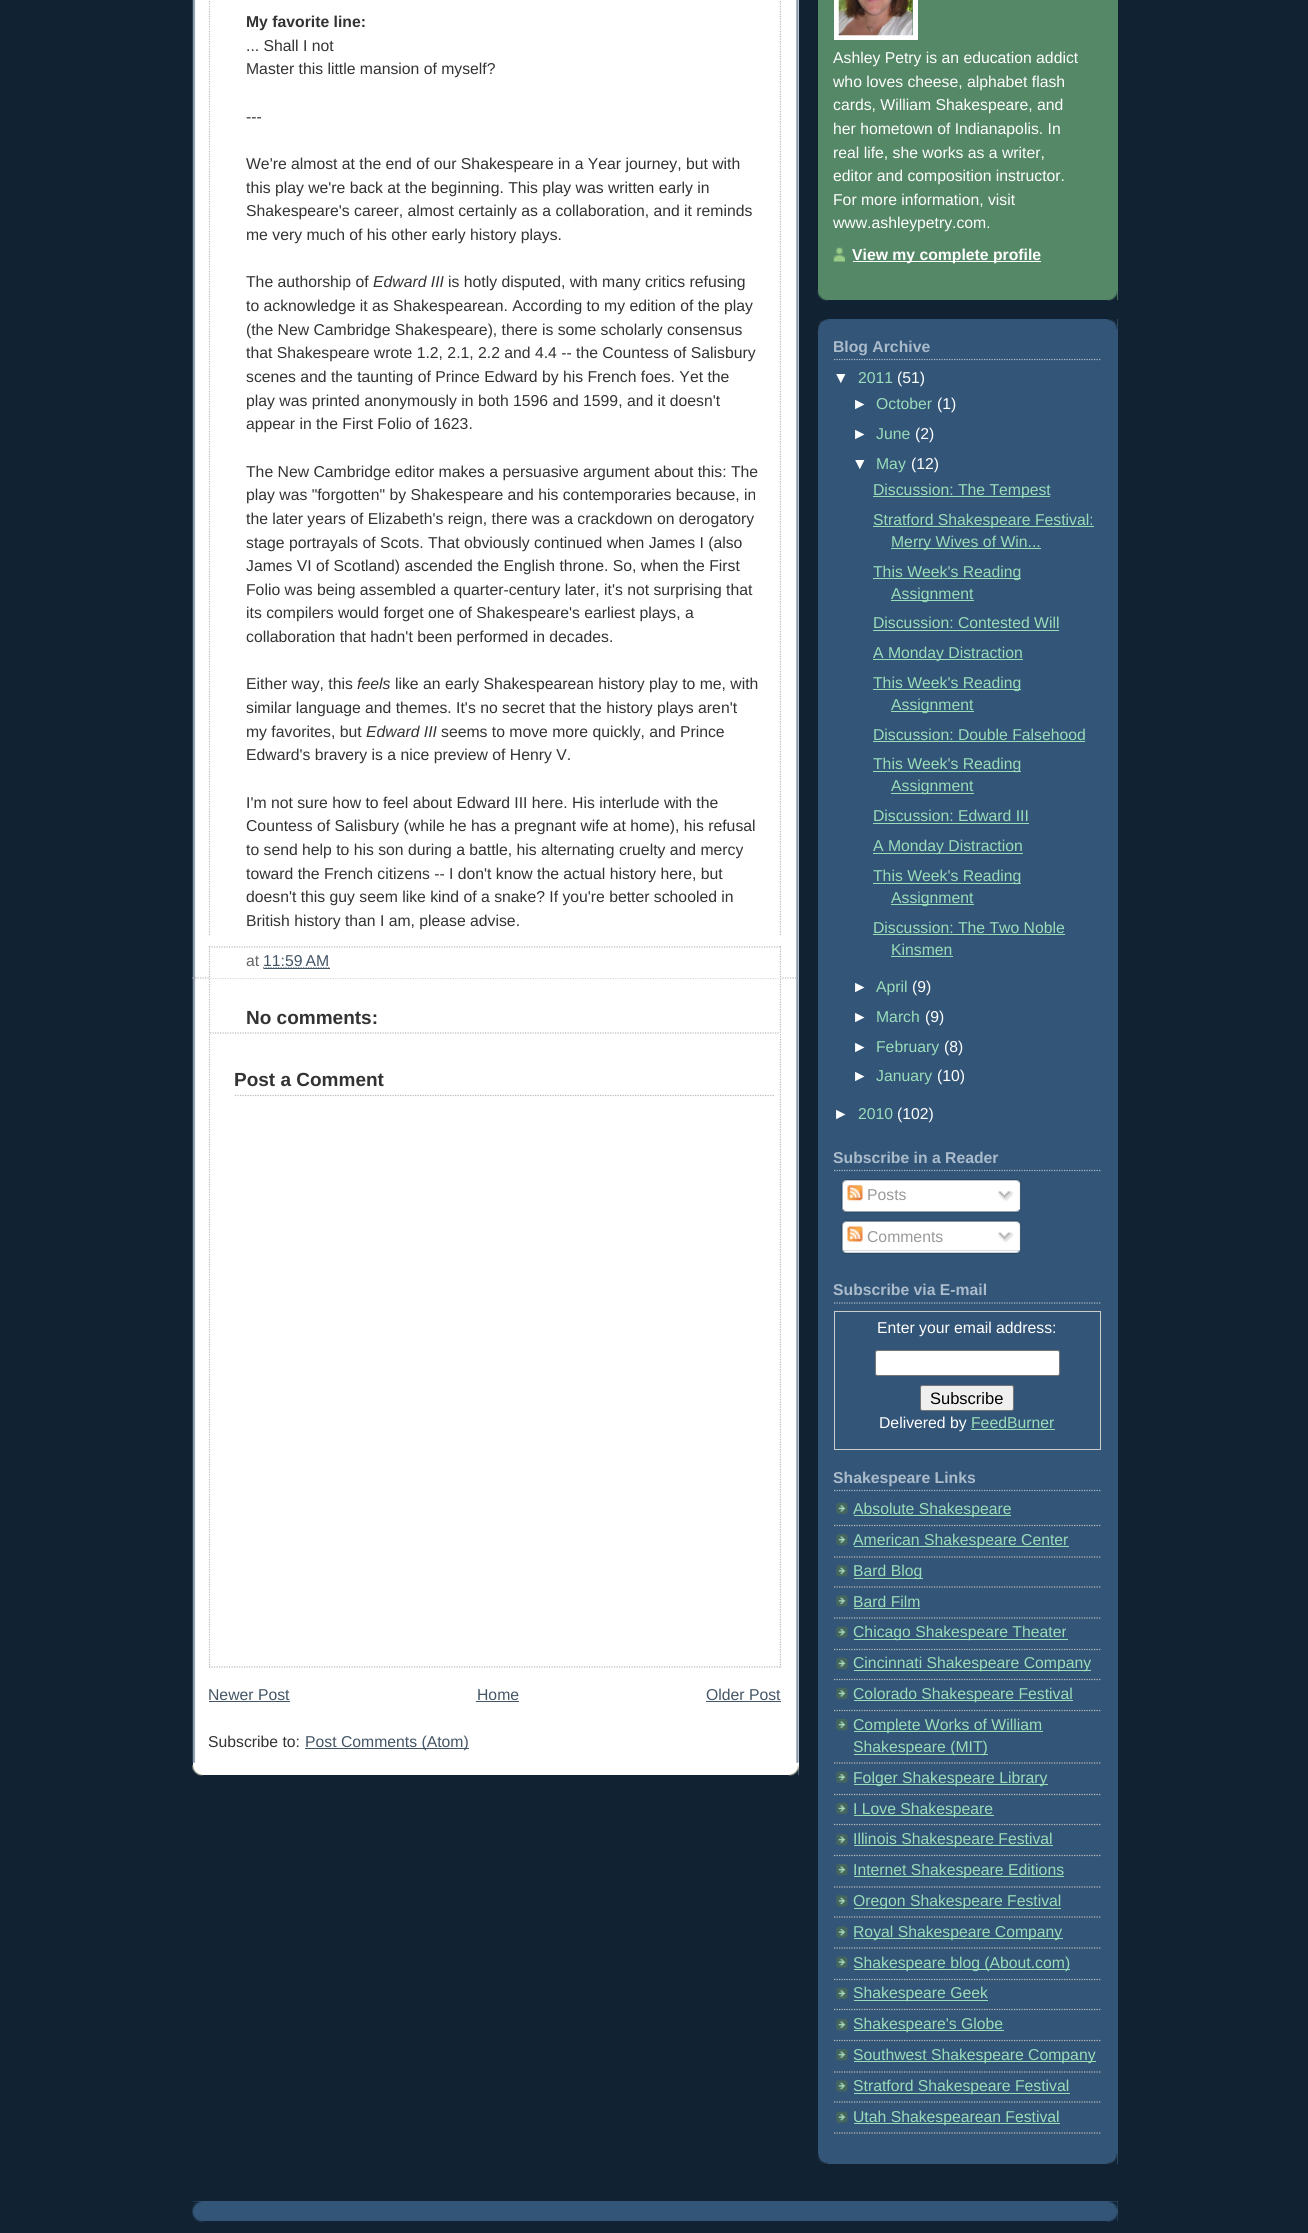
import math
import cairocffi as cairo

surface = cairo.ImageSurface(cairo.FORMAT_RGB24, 1308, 2233)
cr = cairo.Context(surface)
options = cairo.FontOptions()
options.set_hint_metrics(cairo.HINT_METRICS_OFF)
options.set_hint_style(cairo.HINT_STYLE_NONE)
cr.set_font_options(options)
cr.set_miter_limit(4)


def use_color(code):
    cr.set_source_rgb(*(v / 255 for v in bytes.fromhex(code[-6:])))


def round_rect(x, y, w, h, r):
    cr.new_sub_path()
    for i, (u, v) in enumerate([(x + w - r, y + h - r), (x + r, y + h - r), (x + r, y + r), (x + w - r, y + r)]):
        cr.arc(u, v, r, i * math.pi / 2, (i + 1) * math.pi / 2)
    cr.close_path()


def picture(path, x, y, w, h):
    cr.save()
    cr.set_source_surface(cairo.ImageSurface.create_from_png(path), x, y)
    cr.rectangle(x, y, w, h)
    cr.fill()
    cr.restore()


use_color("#112233")
cr.paint()
use_color("#ffffff")
cr.rectangle(193, 0, 606, 1775)
cr.fill()
picture("img1.png", 192, 1765, 607, 11)
picture("img2.png", 192, 0, 607, 1763)
cr.new_path()
cr.move_to(192.5, 978)
cr.line_to(797.5, 978)
use_color("#bbbbbb")
cr.set_line_width(1.2)
cr.set_dash([1.25, 1.25])
cr.stroke()
cr.new_path()
cr.move_to(780.5, -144)
cr.line_to(780.5, 935)
cr.stroke()
cr.new_path()
cr.move_to(209.5, -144)
cr.line_to(209.5, 935)
cr.stroke()
cr.select_font_face("Liberation Sans", cairo.FONT_SLANT_NORMAL, cairo.FONT_WEIGHT_BOLD)
cr.set_font_size(15.75)
use_color("#333333")
cr.move_to(246, 27)
cr.show_text("My favorite line:")
cr.select_font_face("Liberation Sans")
cr.move_to(246, 51)
cr.show_text("... Shall I not")
cr.move_to(246, 74)
cr.show_text("Master this little mansion of myself?")
cr.move_to(246, 122)
cr.show_text("---")
cr.move_to(246, 169)
cr.show_text("We're almost at the end of our Shakespeare in a Year journey, but with")
cr.move_to(246, 193)
cr.show_text("this play we're back at the beginning. This play was written early in")
cr.move_to(246, 216)
cr.show_text("Shakespeare's career, almost certainly as a collaboration, and it reminds")
cr.move_to(246, 240)
cr.show_text("me very much of his other early history plays.")
cr.move_to(246, 287)
cr.show_text("The authorship of")
cr.select_font_face("Liberation Sans", cairo.FONT_SLANT_ITALIC)
cr.move_to(373, 287)
cr.show_text("Edward III")
cr.select_font_face("Liberation Sans")
cr.move_to(448, 287)
cr.show_text("is hotly disputed, with many critics refusing")
cr.move_to(246, 311)
cr.show_text("to acknowledge it as Shakespearean. According to my edition of the play")
cr.move_to(246, 335)
cr.show_text("(the New Cambridge Shakespeare), there is some scholarly consensus")
cr.move_to(246, 358)
cr.show_text("that Shakespeare wrote 1.2, 2.1, 2.2 and 4.4 -- the Countess of Salisbury")
cr.move_to(246, 382)
cr.show_text("scenes and the taunting of Prince Edward by his French foes. Yet the")
cr.move_to(246, 406)
cr.show_text("play was printed anonymously in both 1596 and 1599, and it doesn't")
cr.move_to(246, 429)
cr.show_text("appear in the First Folio of 1623.")
cr.move_to(246, 477)
cr.show_text("The New Cambridge editor makes a persuasive argument about this: The")
cr.move_to(246, 500)
cr.show_text("play was \"forgotten\" by Shakespeare and his contemporaries because, in")
cr.move_to(246, 524)
cr.show_text("the later years of Elizabeth's reign, there was a crackdown on derogatory")
cr.move_to(246, 548)
cr.show_text("stage portrayals of Scots. That obviously continued when James I (also")
cr.move_to(246, 571)
cr.show_text("James VI of Scotland) ascended the English throne. So, when the First")
cr.move_to(246, 595)
cr.show_text("Folio was being assembled a quarter-century later, it's not surprising that")
cr.move_to(246, 618)
cr.show_text("its compilers would forget one of Shakespeare's earliest plays, a")
cr.move_to(246, 642)
cr.show_text("collaboration that hadn't been performed in decades.")
cr.move_to(246, 689)
cr.show_text("Either way, this")
cr.select_font_face("Liberation Sans", cairo.FONT_SLANT_ITALIC)
cr.move_to(357, 689)
cr.show_text("feels")
cr.select_font_face("Liberation Sans")
cr.move_to(395, 689)
cr.show_text("like an early Shakespearean history play to me, with")
cr.move_to(246, 713)
cr.show_text("similar language and themes. It's no secret that the history plays aren't")
cr.move_to(246, 737)
cr.show_text("my favorites, but")
cr.select_font_face("Liberation Sans", cairo.FONT_SLANT_ITALIC)
cr.move_to(366, 737)
cr.show_text("Edward III")
cr.select_font_face("Liberation Sans")
cr.move_to(441, 737)
cr.show_text("seems to move more quickly, and Prince")
cr.move_to(246, 760)
cr.show_text("Edward's bravery is a nice preview of Henry V.")
cr.move_to(246, 808)
cr.show_text("I'm not sure how to feel about Edward III here. His interlude with the")
cr.move_to(246, 831)
cr.show_text("Countess of Salisbury (while he has a pregnant wife at home), his refusal")
cr.move_to(246, 855)
cr.show_text("to send help to his son during a battle, his alternating cruelty and mercy")
cr.move_to(246, 879)
cr.show_text("toward the French citizens -- I don't know the actual history here, but")
cr.move_to(246, 902)
cr.show_text("doesn't this guy seem like kind of a snake? If you're better schooled in")
cr.move_to(246, 926)
cr.show_text("British history than I am, please advise.")
use_color("#ffffff")
cr.rectangle(210, 977, 571, 1)
cr.fill()
cr.new_path()
cr.move_to(209, 947)
cr.line_to(781, 947)
use_color("#bbbbbb")
cr.stroke()
cr.new_path()
cr.move_to(780.5, 946)
cr.line_to(780.5, 977.5)
cr.stroke()
cr.new_path()
cr.move_to(209.5, 946)
cr.line_to(209.5, 977.5)
cr.stroke()
use_color("#666666")
cr.move_to(246, 966)
cr.show_text("at")
use_color("#445566")
cr.move_to(263, 966)
cr.show_text("11:59 AM")
cr.new_path()
cr.move_to(263, 968)
cr.line_to(329.5, 968)
cr.stroke()
cr.rectangle(264, 968, 66, 1)
cr.fill()
cr.new_path()
cr.move_to(780.5, 979)
cr.line_to(780.5, 1667.5)
use_color("#bbbbbb")
cr.stroke()
cr.new_path()
cr.move_to(209, 1667)
cr.line_to(781, 1667)
cr.stroke()
cr.new_path()
cr.move_to(209.5, 979)
cr.line_to(209.5, 1667.5)
cr.stroke()
cr.new_path()
cr.move_to(210, 1033)
cr.line_to(780, 1033)
cr.stroke()
cr.select_font_face("Liberation Sans", cairo.FONT_SLANT_NORMAL, cairo.FONT_WEIGHT_BOLD)
cr.set_font_size(19)
use_color("#333333")
cr.move_to(246, 1024)
cr.show_text("No comments:")
cr.new_path()
cr.move_to(235, 1095.5)
cr.line_to(774, 1095.5)
use_color("#bbbbbb")
cr.stroke()
use_color("#333333")
cr.move_to(234, 1086)
cr.show_text("Post a Comment")
cr.select_font_face("Liberation Sans")
cr.set_font_size(15.75)
use_color("#445566")
cr.move_to(208, 1700)
cr.show_text("Newer Post")
cr.rectangle(209, 1701, 81, 1)
cr.fill()
cr.move_to(477, 1700)
cr.show_text("Home")
cr.rectangle(476, 1701, 43, 1)
cr.fill()
cr.move_to(706, 1700)
cr.show_text("Older Post")
cr.rectangle(706, 1701, 75, 1)
cr.fill()
use_color("#333333")
cr.move_to(208, 1747)
cr.show_text("Subscribe to:")
use_color("#445566")
cr.rectangle(305, 1748, 164, 1)
cr.fill()
cr.move_to(305, 1747)
cr.show_text("Post Comments (Atom)")
use_color("#558866")
cr.rectangle(818, 0, 300, 300)
cr.fill()
picture("img3.png", 817, 290, 301, 11)
cr.rectangle(836.5, -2.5, 79, 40)
use_color("#ffffff")
cr.set_line_width(5)
cr.set_dash([])
cr.stroke()
picture("img4.png", 838, 0, 75, 36)
cr.move_to(833, 63)
cr.show_text("Ashley Petry is an education addict")
cr.move_to(833, 87)
cr.show_text("who loves cheese, alphabet flash")
cr.move_to(833, 110)
cr.show_text("cards, William Shakespeare, and")
cr.move_to(833, 134)
cr.show_text("her hometown of Indianapolis. In")
cr.move_to(833, 158)
cr.show_text("real life, she works as a writer,")
cr.move_to(833, 181)
cr.show_text("editor and composition instructor.")
cr.move_to(833, 205)
cr.show_text("For more information, visit")
cr.move_to(833, 228)
cr.show_text("www.ashleypetry.com.")
picture("img5.png", 833, 247, 12, 15)
cr.rectangle(853, 261, 188, 1)
cr.fill()
cr.select_font_face("Liberation Sans", cairo.FONT_SLANT_NORMAL, cairo.FONT_WEIGHT_BOLD)
cr.move_to(852, 260)
cr.show_text("View my complete profile")
use_color("#335577")
cr.rectangle(818, 319, 300, 1845)
cr.fill()
picture("img6.png", 818, 319, 300, 11)
picture("img7.png", 818, 2154, 300, 10)
cr.new_path()
cr.move_to(834, 359.5)
cr.line_to(1101, 359.5)
use_color("#aabbcc")
cr.set_line_width(1.2)
cr.set_dash([1.25, 1.25])
cr.stroke()
cr.move_to(833, 352)
cr.show_text("Blog Archive")
cr.select_font_face("Liberation Sans")
use_color("#ffffff")
cr.move_to(833, 383)
cr.show_text("▼")
use_color("#99ddbb")
cr.move_to(858, 383)
cr.show_text("2011")
use_color("#ffffff")
cr.move_to(897, 383)
cr.show_text("(51)")
cr.move_to(852, 409)
cr.show_text("►")
use_color("#99ddbb")
cr.move_to(876, 409)
cr.show_text("October")
use_color("#ffffff")
cr.move_to(937, 409)
cr.show_text("(1)")
cr.move_to(852, 439)
cr.show_text("►")
use_color("#99ddbb")
cr.move_to(876, 439)
cr.show_text("June")
use_color("#ffffff")
cr.move_to(915, 439)
cr.show_text("(2)")
cr.move_to(852, 469)
cr.show_text("▼")
use_color("#99ddbb")
cr.move_to(876, 469)
cr.show_text("May")
use_color("#ffffff")
cr.move_to(911, 469)
cr.show_text("(12)")
use_color("#99ddbb")
cr.rectangle(873, 496, 177, 1)
cr.fill()
cr.move_to(873, 495)
cr.show_text("Discussion: The Tempest")
cr.rectangle(873, 526, 221, 1)
cr.fill()
cr.move_to(873, 525)
cr.show_text("Stratford Shakespeare Festival:")
cr.rectangle(891, 548, 150, 1)
cr.fill()
cr.move_to(891, 547)
cr.show_text("Merry Wives of Win...")
cr.rectangle(873, 578, 148, 1)
cr.fill()
cr.move_to(873, 577)
cr.show_text("This Week's Reading")
cr.rectangle(891, 600, 83, 1)
cr.fill()
cr.move_to(891, 599)
cr.show_text("Assignment")
cr.move_to(873, 628)
cr.show_text("Discussion: Contested Will")
cr.rectangle(873, 630, 186, 1)
cr.fill()
cr.rectangle(873, 659, 150, 1)
cr.fill()
cr.move_to(873, 658)
cr.show_text("A Monday Distraction")
cr.rectangle(873, 689, 148, 1)
cr.fill()
cr.move_to(873, 688)
cr.show_text("This Week's Reading")
cr.rectangle(891, 711, 83, 1)
cr.fill()
cr.move_to(891, 710)
cr.show_text("Assignment")
cr.move_to(873, 740)
cr.show_text("Discussion: Double Falsehood")
cr.rectangle(873, 741, 212, 1)
cr.fill()
cr.rectangle(873, 771, 148, 1)
cr.fill()
cr.move_to(873, 769)
cr.show_text("This Week's Reading")
cr.rectangle(891, 793, 83, 1)
cr.fill()
cr.move_to(891, 791)
cr.show_text("Assignment")
cr.move_to(873, 821)
cr.show_text("Discussion: Edward III")
cr.rectangle(873, 823, 156, 1)
cr.fill()
cr.rectangle(873, 853, 150, 1)
cr.fill()
cr.move_to(873, 851)
cr.show_text("A Monday Distraction")
cr.rectangle(873, 883, 148, 1)
cr.fill()
cr.move_to(873, 881)
cr.show_text("This Week's Reading")
cr.rectangle(891, 904, 83, 1)
cr.fill()
cr.move_to(891, 903)
cr.show_text("Assignment")
cr.move_to(873, 933)
cr.show_text("Discussion: The Two Noble")
cr.rectangle(873, 934, 192, 1)
cr.fill()
cr.move_to(891, 955)
cr.show_text("Kinsmen")
cr.rectangle(891, 956, 62, 1)
cr.fill()
use_color("#ffffff")
cr.move_to(852, 992)
cr.show_text("►")
use_color("#99ddbb")
cr.move_to(876, 992)
cr.show_text("April")
use_color("#ffffff")
cr.move_to(912, 992)
cr.show_text("(9)")
cr.move_to(852, 1022)
cr.show_text("►")
use_color("#99ddbb")
cr.move_to(876, 1022)
cr.show_text("March")
use_color("#ffffff")
cr.move_to(925, 1022)
cr.show_text("(9)")
cr.move_to(852, 1052)
cr.show_text("►")
use_color("#99ddbb")
cr.move_to(876, 1052)
cr.show_text("February")
use_color("#ffffff")
cr.move_to(944, 1052)
cr.show_text("(8)")
cr.move_to(852, 1081)
cr.show_text("►")
use_color("#99ddbb")
cr.move_to(876, 1081)
cr.show_text("January")
use_color("#ffffff")
cr.move_to(937, 1081)
cr.show_text("(10)")
cr.move_to(833, 1119)
cr.show_text("►")
use_color("#99ddbb")
cr.move_to(858, 1119)
cr.show_text("2010")
use_color("#ffffff")
cr.move_to(897, 1119)
cr.show_text("(102)")
cr.new_path()
cr.move_to(834, 1170.5)
cr.line_to(1101, 1170.5)
use_color("#aabbcc")
cr.stroke()
cr.select_font_face("Liberation Sans", cairo.FONT_SLANT_NORMAL, cairo.FONT_WEIGHT_BOLD)
cr.move_to(833, 1163)
cr.show_text("Subscribe in a Reader")
picture("img8.png", 841, 1179, 181, 30)
picture("img9.png", 847, 1185, 16, 16)
cr.select_font_face("Liberation Sans")
use_color("#999999")
cr.move_to(867, 1200)
cr.show_text("Posts")
picture("img10.png", 997, 1190, 17, 12)
picture("img11.png", 841, 1209, 180, 4)
picture("img12.png", 841, 1220, 181, 31)
picture("img13.png", 847, 1226, 16, 16)
cr.move_to(867, 1242)
cr.show_text("Comments")
picture("img14.png", 997, 1232, 17, 11)
picture("img15.png", 841, 1250, 180, 4)
cr.new_path()
cr.move_to(834, 1303)
cr.line_to(1101, 1303)
use_color("#aabbcc")
cr.stroke()
cr.select_font_face("Liberation Sans", cairo.FONT_SLANT_NORMAL, cairo.FONT_WEIGHT_BOLD)
cr.move_to(833, 1295)
cr.show_text("Subscribe via E-mail")
cr.rectangle(834.5, 1311.5, 266, 138)
use_color("#cccccc")
cr.set_line_width(1)
cr.set_dash([])
cr.stroke()
cr.select_font_face("Liberation Sans")
use_color("#ffffff")
cr.move_to(877, 1333)
cr.show_text("Enter your email address:")
round_rect(875.5, 1350.5, 184, 25, 2)
cr.fill_preserve()
use_color("#767676")
cr.stroke()
use_color("#efefef")
round_rect(920.5, 1385.5, 93, 25, 2)
cr.fill_preserve()
use_color("#767676")
cr.stroke()
cr.set_font_size(16.5)
use_color("#000000")
cr.move_to(930, 1404)
cr.show_text("Subscribe")
cr.set_font_size(15.75)
use_color("#ffffff")
cr.move_to(879, 1428)
cr.show_text("Delivered by")
use_color("#99ddbb")
cr.move_to(971, 1428)
cr.show_text("FeedBurner")
cr.rectangle(971, 1429, 84, 1)
cr.fill()
cr.new_path()
cr.move_to(834, 1490.5)
cr.line_to(1101, 1490.5)
use_color("#aabbcc")
cr.set_line_width(1.2)
cr.set_dash([1.25, 1.25])
cr.stroke()
cr.select_font_face("Liberation Sans", cairo.FONT_SLANT_NORMAL, cairo.FONT_WEIGHT_BOLD)
cr.move_to(833, 1483)
cr.show_text("Shakespeare Links")
picture("img16.png", 836, 1502, 12, 12)
cr.new_path()
cr.move_to(834, 1525.5)
cr.line_to(1101, 1525.5)
use_color("#bbbbbb")
cr.stroke()
use_color("#99ddbb")
cr.rectangle(854, 1515, 157, 1)
cr.fill()
cr.select_font_face("Liberation Sans")
cr.move_to(853, 1514)
cr.show_text("Absolute Shakespeare")
picture("img17.png", 836, 1534, 12, 12)
cr.new_path()
cr.move_to(834, 1557)
cr.line_to(1101, 1557)
use_color("#bbbbbb")
cr.stroke()
use_color("#99ddbb")
cr.rectangle(854, 1546, 215, 1)
cr.fill()
cr.move_to(853, 1545)
cr.show_text("American Shakespeare Center")
picture("img18.png", 836, 1565, 12, 12)
cr.new_path()
cr.move_to(834, 1587)
cr.line_to(1101, 1587)
use_color("#bbbbbb")
cr.stroke()
use_color("#99ddbb")
cr.rectangle(854, 1578, 69, 1)
cr.fill()
cr.move_to(853, 1576)
cr.show_text("Bard Blog")
picture("img18.png", 836, 1595, 12, 12)
cr.new_path()
cr.move_to(834, 1618)
cr.line_to(1101, 1618)
use_color("#bbbbbb")
cr.stroke()
use_color("#99ddbb")
cr.move_to(853, 1607)
cr.show_text("Bard Film")
cr.rectangle(854, 1608, 66, 1)
cr.fill()
picture("img19.png", 836, 1626, 12, 12)
cr.new_path()
cr.move_to(834, 1649.5)
cr.line_to(1101, 1649.5)
use_color("#bbbbbb")
cr.stroke()
use_color("#99ddbb")
cr.rectangle(854, 1639, 214, 1)
cr.fill()
cr.move_to(853, 1637)
cr.show_text("Chicago Shakespeare Theater")
picture("img16.png", 836, 1657, 12, 12)
cr.new_path()
cr.move_to(834, 1679.5)
cr.line_to(1101, 1679.5)
use_color("#bbbbbb")
cr.stroke()
use_color("#99ddbb")
cr.rectangle(854, 1670, 237, 1)
cr.fill()
cr.move_to(853, 1668)
cr.show_text("Cincinnati Shakespeare Company")
picture("img16.png", 836, 1687, 12, 12)
cr.new_path()
cr.move_to(834, 1710.5)
cr.line_to(1101, 1710.5)
use_color("#bbbbbb")
cr.stroke()
use_color("#99ddbb")
cr.rectangle(854, 1700, 219, 1)
cr.fill()
cr.move_to(853, 1699)
cr.show_text("Colorado Shakespeare Festival")
picture("img17.png", 836, 1719, 12, 12)
cr.new_path()
cr.move_to(834, 1763)
cr.line_to(1101, 1763)
use_color("#bbbbbb")
cr.stroke()
use_color("#99ddbb")
cr.rectangle(854, 1731, 189, 1)
cr.fill()
cr.move_to(853, 1730)
cr.show_text("Complete Works of William")
cr.rectangle(854, 1754, 134, 1)
cr.fill()
cr.move_to(853, 1752)
cr.show_text("Shakespeare (MIT)")
picture("img19.png", 836, 1771, 12, 12)
cr.new_path()
cr.move_to(834, 1794.5)
cr.line_to(1101, 1794.5)
use_color("#bbbbbb")
cr.stroke()
use_color("#99ddbb")
cr.rectangle(854, 1784, 194, 1)
cr.fill()
cr.move_to(853, 1783)
cr.show_text("Folger Shakespeare Library")
picture("img16.png", 836, 1802, 12, 12)
cr.new_path()
cr.move_to(834, 1824.5)
cr.line_to(1101, 1824.5)
use_color("#bbbbbb")
cr.stroke()
use_color("#99ddbb")
cr.rectangle(854, 1815, 140, 1)
cr.fill()
cr.move_to(853, 1814)
cr.show_text("I Love Shakespeare")
picture("img17.png", 836, 1834, 12, 12)
cr.new_path()
cr.move_to(834, 1855.5)
cr.line_to(1101, 1855.5)
use_color("#bbbbbb")
cr.stroke()
use_color("#99ddbb")
cr.rectangle(854, 1845, 199, 1)
cr.fill()
cr.move_to(853, 1844)
cr.show_text("Illinois Shakespeare Festival")
picture("img17.png", 836, 1864, 12, 12)
cr.new_path()
cr.move_to(834, 1887)
cr.line_to(1101, 1887)
use_color("#bbbbbb")
cr.stroke()
use_color("#99ddbb")
cr.rectangle(854, 1876, 210, 1)
cr.fill()
cr.move_to(853, 1875)
cr.show_text("Internet Shakespeare Editions")
picture("img18.png", 836, 1895, 12, 12)
cr.new_path()
cr.move_to(834, 1917)
cr.line_to(1101, 1917)
use_color("#bbbbbb")
cr.stroke()
use_color("#99ddbb")
cr.rectangle(854, 1908, 207, 1)
cr.fill()
cr.move_to(853, 1906)
cr.show_text("Oregon Shakespeare Festival")
picture("img19.png", 836, 1926, 12, 12)
cr.new_path()
cr.move_to(834, 1948)
cr.line_to(1101, 1948)
use_color("#bbbbbb")
cr.stroke()
use_color("#99ddbb")
cr.rectangle(854, 1938, 209, 1)
cr.fill()
cr.move_to(853, 1937)
cr.show_text("Royal Shakespeare Company")
picture("img19.png", 836, 1956, 12, 12)
cr.new_path()
cr.move_to(834, 1979.5)
cr.line_to(1101, 1979.5)
use_color("#bbbbbb")
cr.stroke()
use_color("#99ddbb")
cr.rectangle(854, 1969, 216, 1)
cr.fill()
cr.move_to(853, 1968)
cr.show_text("Shakespeare blog (About.com)")
picture("img16.png", 836, 1987, 12, 12)
cr.new_path()
cr.move_to(834, 2009.5)
cr.line_to(1101, 2009.5)
use_color("#bbbbbb")
cr.stroke()
use_color("#99ddbb")
cr.rectangle(854, 2000, 134, 1)
cr.fill()
cr.move_to(853, 1998)
cr.show_text("Shakespeare Geek")
picture("img17.png", 836, 2019, 12, 12)
cr.new_path()
cr.move_to(834, 2040.5)
cr.line_to(1101, 2040.5)
use_color("#bbbbbb")
cr.stroke()
use_color("#99ddbb")
cr.rectangle(854, 2030, 150, 1)
cr.fill()
cr.move_to(853, 2029)
cr.show_text("Shakespeare's Globe")
picture("img17.png", 836, 2049, 12, 12)
cr.new_path()
cr.move_to(834, 2072)
cr.line_to(1101, 2072)
use_color("#bbbbbb")
cr.stroke()
use_color("#99ddbb")
cr.rectangle(854, 2061, 242, 1)
cr.fill()
cr.move_to(853, 2060)
cr.show_text("Southwest Shakespeare Company")
picture("img18.png", 836, 2080, 12, 12)
cr.new_path()
cr.move_to(834, 2102)
cr.line_to(1101, 2102)
use_color("#bbbbbb")
cr.stroke()
use_color("#99ddbb")
cr.rectangle(854, 2093, 216, 1)
cr.fill()
cr.move_to(853, 2091)
cr.show_text("Stratford Shakespeare Festival")
picture("img19.png", 836, 2111, 12, 12)
cr.new_path()
cr.move_to(834, 2133)
cr.line_to(1101, 2133)
use_color("#bbbbbb")
cr.stroke()
use_color("#99ddbb")
cr.rectangle(854, 2123, 206, 1)
cr.fill()
cr.move_to(853, 2122)
cr.show_text("Utah Shakespearean Festival")
use_color("#335577")
cr.rectangle(193, 2201, 925, 20)
cr.fill()
picture("img20.png", 192, 2201, 926, 11)
picture("img21.png", 192, 2211, 926, 11)
surface.write_to_png("result.png")
